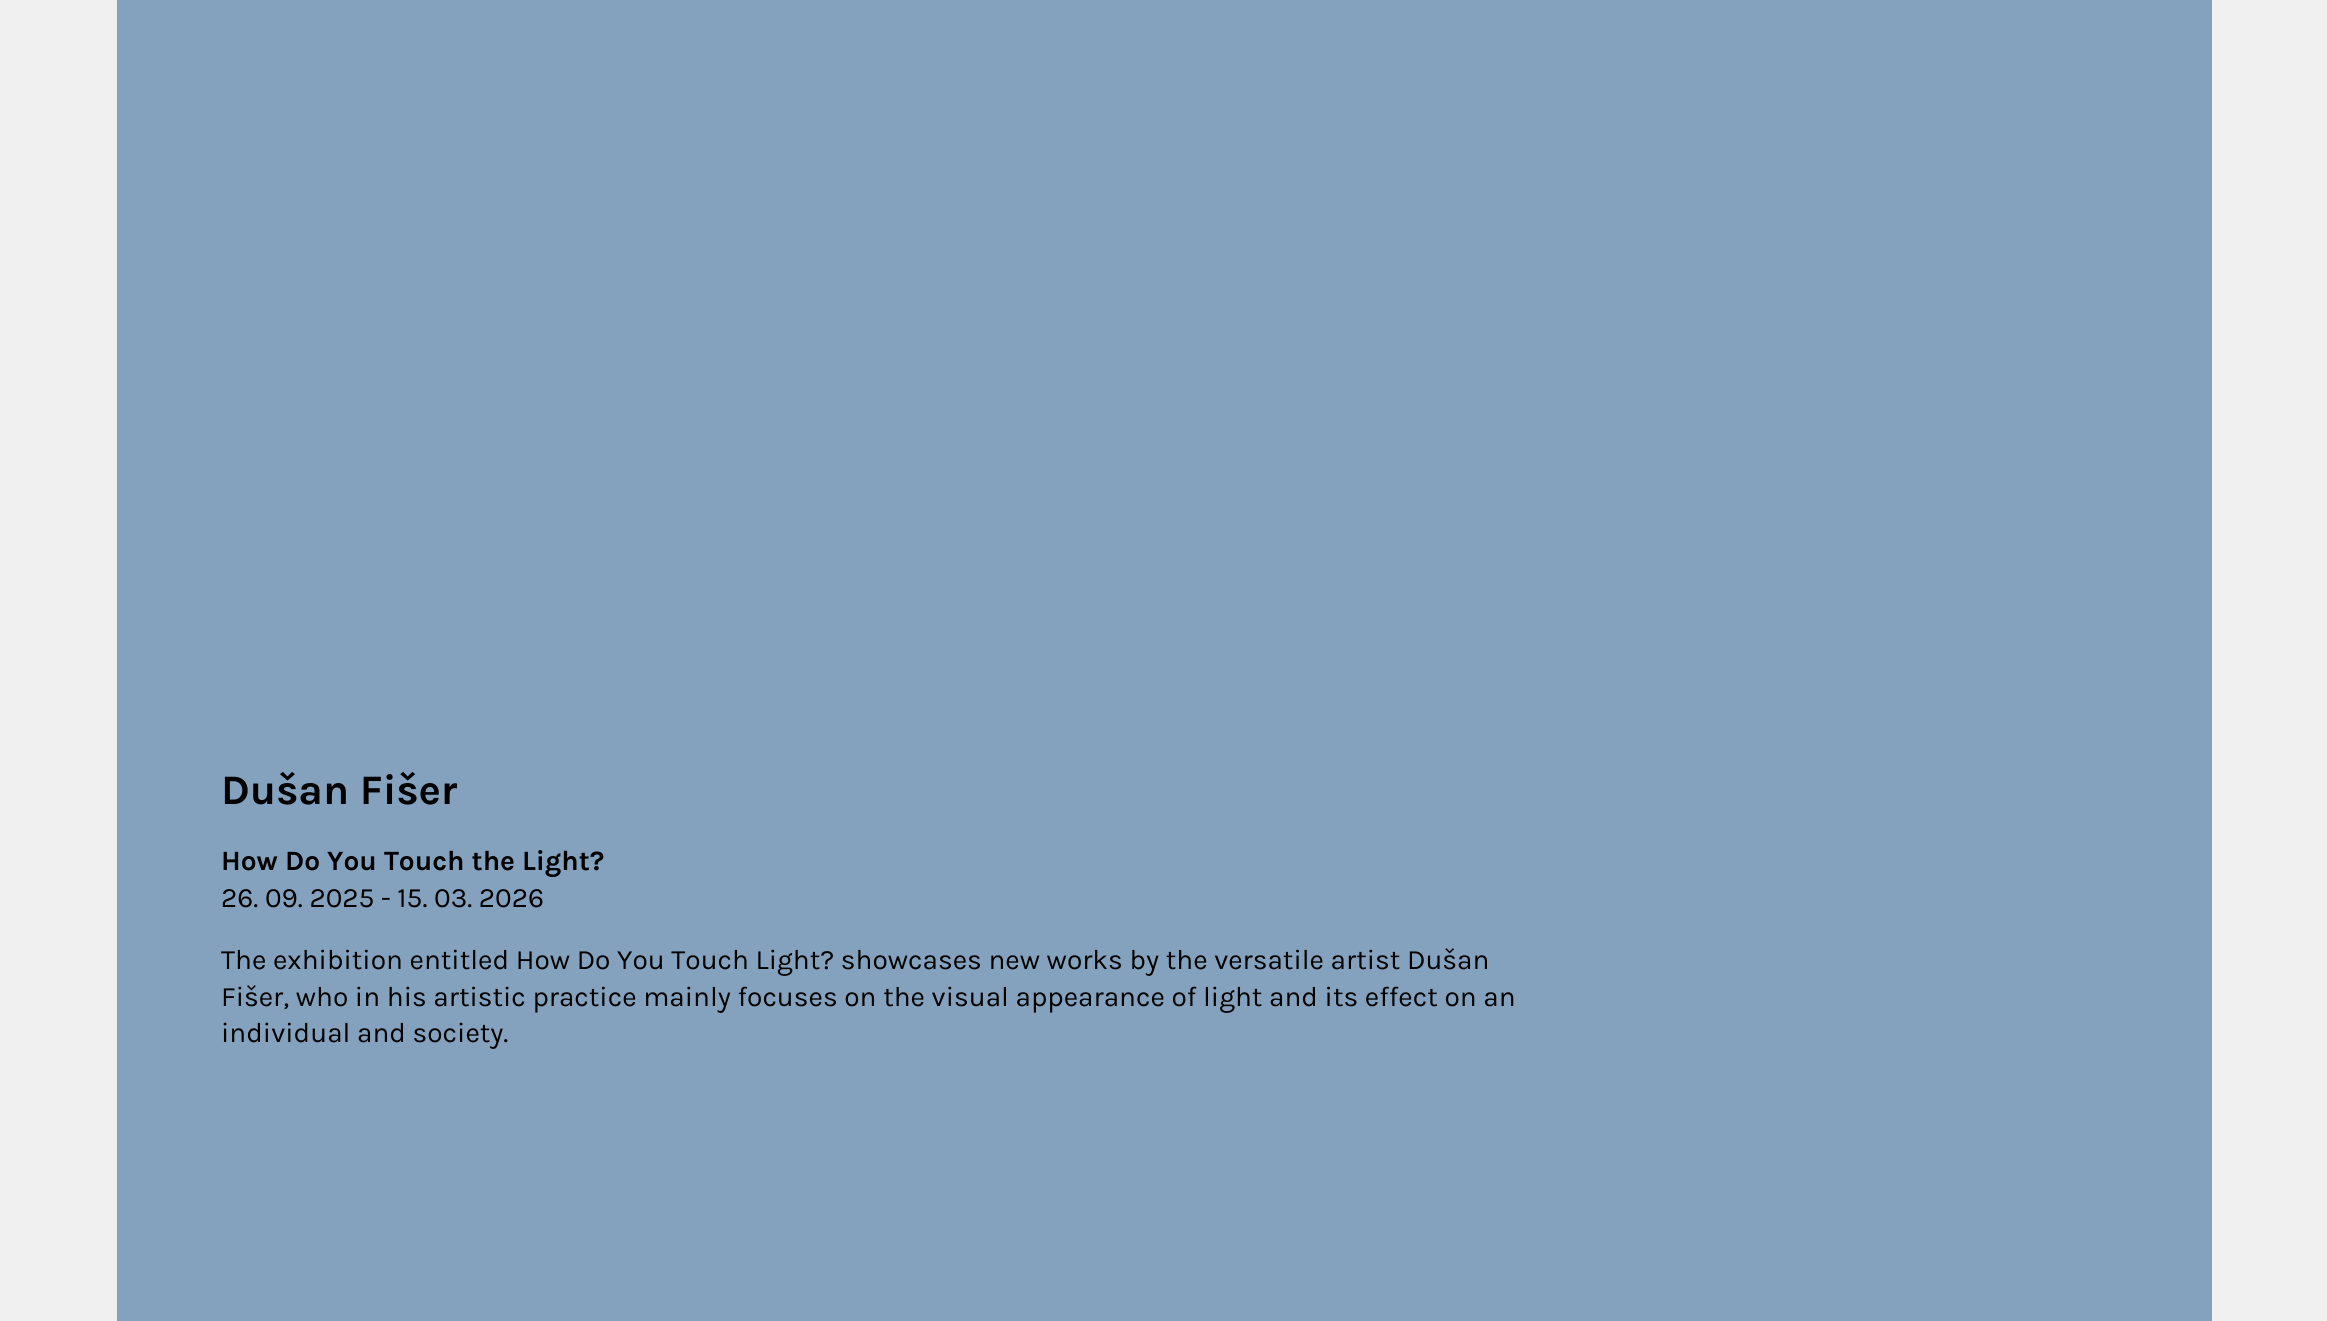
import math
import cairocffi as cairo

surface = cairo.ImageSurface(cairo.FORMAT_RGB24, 2327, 1321)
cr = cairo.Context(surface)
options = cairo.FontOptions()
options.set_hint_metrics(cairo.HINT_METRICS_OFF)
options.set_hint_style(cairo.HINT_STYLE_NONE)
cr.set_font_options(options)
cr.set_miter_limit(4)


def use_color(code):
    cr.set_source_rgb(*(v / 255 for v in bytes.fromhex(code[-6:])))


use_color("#f0f0f0")
cr.paint()
use_color("#84a2bd")
cr.rectangle(117, 0, 2095, 1321)
cr.fill()
cr.select_font_face("Karla", cairo.FONT_SLANT_NORMAL, cairo.FONT_WEIGHT_BOLD)
cr.set_font_size(42)
use_color("#000000")
cr.move_to(221, 804)
cr.show_text("Dušan Fišer")
cr.set_font_size(28)
cr.move_to(221, 870)
cr.show_text("How Do You Touch the Light?")
cr.select_font_face("Karla")
cr.move_to(221, 907)
cr.show_text("26. 09. 2025 - 15. 03. 2026")
cr.move_to(221, 969)
cr.show_text("The exhibition entitled How Do You Touch Light? showcases new works by the versatile artist Dušan")
cr.move_to(221, 1006)
cr.show_text("Fišer, who in his artistic practice mainly focuses on the visual appearance of light and its effect on an")
cr.move_to(221, 1042)
cr.show_text("individual and society.")
surface.write_to_png("result.png")
